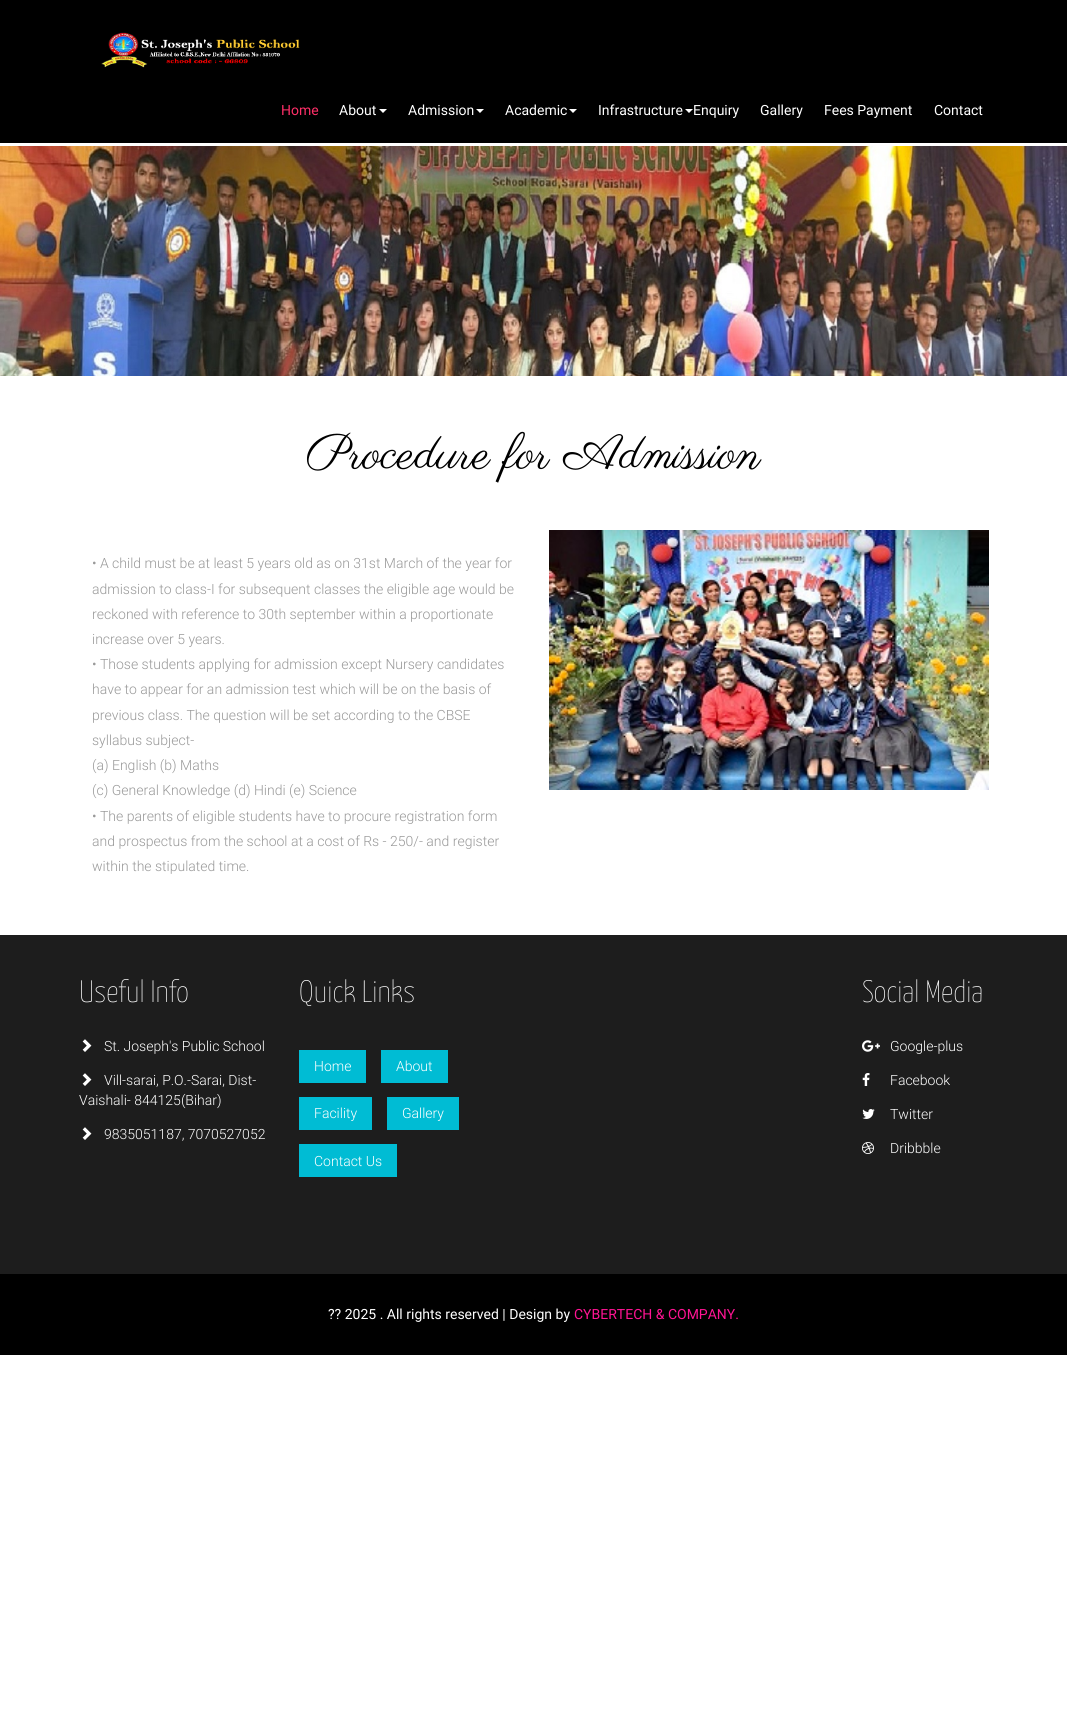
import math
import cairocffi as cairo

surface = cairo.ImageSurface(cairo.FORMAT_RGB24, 1067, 1724)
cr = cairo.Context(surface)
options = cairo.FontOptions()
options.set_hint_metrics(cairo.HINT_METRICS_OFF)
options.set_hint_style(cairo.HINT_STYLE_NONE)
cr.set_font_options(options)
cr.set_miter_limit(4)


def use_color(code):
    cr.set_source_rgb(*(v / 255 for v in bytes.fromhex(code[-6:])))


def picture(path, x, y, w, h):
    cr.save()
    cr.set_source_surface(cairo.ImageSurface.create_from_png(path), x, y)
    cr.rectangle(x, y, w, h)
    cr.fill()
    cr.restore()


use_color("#ffffff")
cr.paint()
use_color("#000000")
cr.rectangle(0, 0, 1067, 143)
cr.fill()
picture("img1.png", 101, 32, 199, 36)
cr.select_font_face("Roboto")
cr.set_font_size(14)
use_color("#ff2f68")
cr.move_to(281, 115)
cr.show_text("Home")
use_color("#ffffff")
cr.move_to(339, 115)
cr.show_text("About")
cr.new_path()
cr.move_to(379, 109)
cr.line_to(387, 109)
cr.line_to(383, 113)
cr.close_path()
cr.fill()
cr.move_to(408, 115)
cr.show_text("Admission")
cr.new_path()
cr.move_to(476, 109)
cr.line_to(484, 109)
cr.line_to(480, 113)
cr.close_path()
cr.fill()
cr.move_to(505, 115)
cr.show_text("Academic")
cr.new_path()
cr.move_to(569, 109)
cr.line_to(577, 109)
cr.line_to(573, 113)
cr.close_path()
cr.fill()
cr.move_to(598, 115)
cr.show_text("Infrastructure")
cr.new_path()
cr.move_to(685, 109)
cr.line_to(693, 109)
cr.line_to(689, 113)
cr.close_path()
cr.fill()
cr.move_to(693, 115)
cr.show_text("Enquiry")
cr.move_to(760, 115)
cr.show_text("Gallery")
cr.move_to(824, 115)
cr.show_text("Fees Payment")
cr.move_to(934, 115)
cr.show_text("Contact")
picture("img2.png", 0, 146, 1067, 230)
cr.select_font_face("Parisienne")
cr.set_font_size(49)
use_color("#000000")
cr.move_to(306, 468)
cr.show_text("Procedure for Admission")
cr.select_font_face("Roboto Light")
cr.set_font_size(14)
use_color("#999999")
cr.move_to(92, 568)
cr.show_text("• A child must be at least 5 years old as on 31st March of the year for")
cr.move_to(92, 594)
cr.show_text("admission to class-I for subsequent classes the eligible age would be")
cr.move_to(92, 619)
cr.show_text("reckoned with reference to 30th september within a proportionate")
cr.move_to(92, 644)
cr.show_text("increase over 5 years.")
cr.move_to(92, 669)
cr.show_text("• Those students applying for admission except Nursery candidates")
cr.move_to(92, 694)
cr.show_text("have to appear for an admission test which will be on the basis of")
cr.move_to(92, 720)
cr.show_text("previous class. The question will be set according to the CBSE")
cr.move_to(92, 745)
cr.show_text("syllabus subject-")
cr.move_to(92, 770)
cr.show_text("(a) English (b) Maths")
cr.move_to(92, 795)
cr.show_text("(c) General Knowledge (d) Hindi (e) Science")
cr.move_to(92, 821)
cr.show_text("• The parents of eligible students have to procure registration form")
cr.move_to(92, 846)
cr.show_text("and prospectus from the school at a cost of Rs - 250/- and register")
cr.move_to(92, 871)
cr.show_text("within the stipulated time.")
picture("img3.png", 549, 530, 440, 260)
use_color("#1d1d1d")
cr.rectangle(0, 935, 1067, 339)
cr.fill()
cr.select_font_face("Yanone Kaffeesatz ExtraLight")
cr.set_font_size(31)
use_color("#ffffff")
cr.move_to(79, 1002)
cr.show_text("Useful Info")
picture("img4.png", 82, 1039, 10, 13)
cr.select_font_face("Roboto Light")
cr.set_font_size(14)
cr.move_to(104, 1051)
cr.show_text("St. Joseph's Public School")
picture("img4.png", 82, 1073, 10, 13)
cr.move_to(104, 1085)
cr.show_text("Vill-sarai, P.O.-Sarai, Dist-")
cr.move_to(79, 1105)
cr.show_text("Vaishali- 844125(Bihar)")
picture("img4.png", 82, 1127, 10, 13)
cr.move_to(104, 1139)
cr.show_text("9835051187, 7070527052")
cr.select_font_face("Yanone Kaffeesatz ExtraLight")
cr.set_font_size(31)
cr.move_to(299, 1002)
cr.show_text("Quick Links")
use_color("#00bcd4")
cr.rectangle(299, 1050, 67, 33)
cr.fill()
cr.select_font_face("Roboto Light")
cr.set_font_size(14)
use_color("#ffffff")
cr.move_to(314, 1071)
cr.show_text("Home")
use_color("#00bcd4")
cr.rectangle(381, 1050, 67, 33)
cr.fill()
use_color("#ffffff")
cr.move_to(396, 1071)
cr.show_text("About")
use_color("#00bcd4")
cr.rectangle(299, 1097, 73, 33)
cr.fill()
use_color("#ffffff")
cr.move_to(314, 1118)
cr.show_text("Facility")
use_color("#00bcd4")
cr.rectangle(387, 1097, 72, 33)
cr.fill()
use_color("#ffffff")
cr.move_to(402, 1118)
cr.show_text("Gallery")
use_color("#00bcd4")
cr.rectangle(299, 1144, 98, 33)
cr.fill()
use_color("#ffffff")
cr.move_to(314, 1166)
cr.show_text("Contact Us")
cr.select_font_face("Yanone Kaffeesatz ExtraLight")
cr.set_font_size(31)
cr.move_to(862, 1002)
cr.show_text("Social Media")
picture("img5.png", 862, 1040, 18, 12)
cr.select_font_face("Roboto Light")
cr.set_font_size(14)
cr.move_to(890, 1051)
cr.show_text("Google-plus")
picture("img6.png", 862, 1073, 8, 13)
cr.move_to(890, 1085)
cr.show_text("Facebook")
picture("img7.png", 862, 1109, 13, 10)
cr.move_to(890, 1119)
cr.show_text("Twitter")
picture("img8.png", 862, 1142, 12, 12)
cr.move_to(890, 1153)
cr.show_text("Dribbble")
use_color("#000000")
cr.rectangle(0, 1274, 1067, 81)
cr.fill()
cr.select_font_face("Roboto")
use_color("#ffffff")
cr.move_to(328, 1319)
cr.show_text("?? 2025 . All rights reserved | Design by")
use_color("#ff1493")
cr.move_to(574, 1319)
cr.show_text("CYBERTECH & COMPANY.")
surface.write_to_png("result.png")
